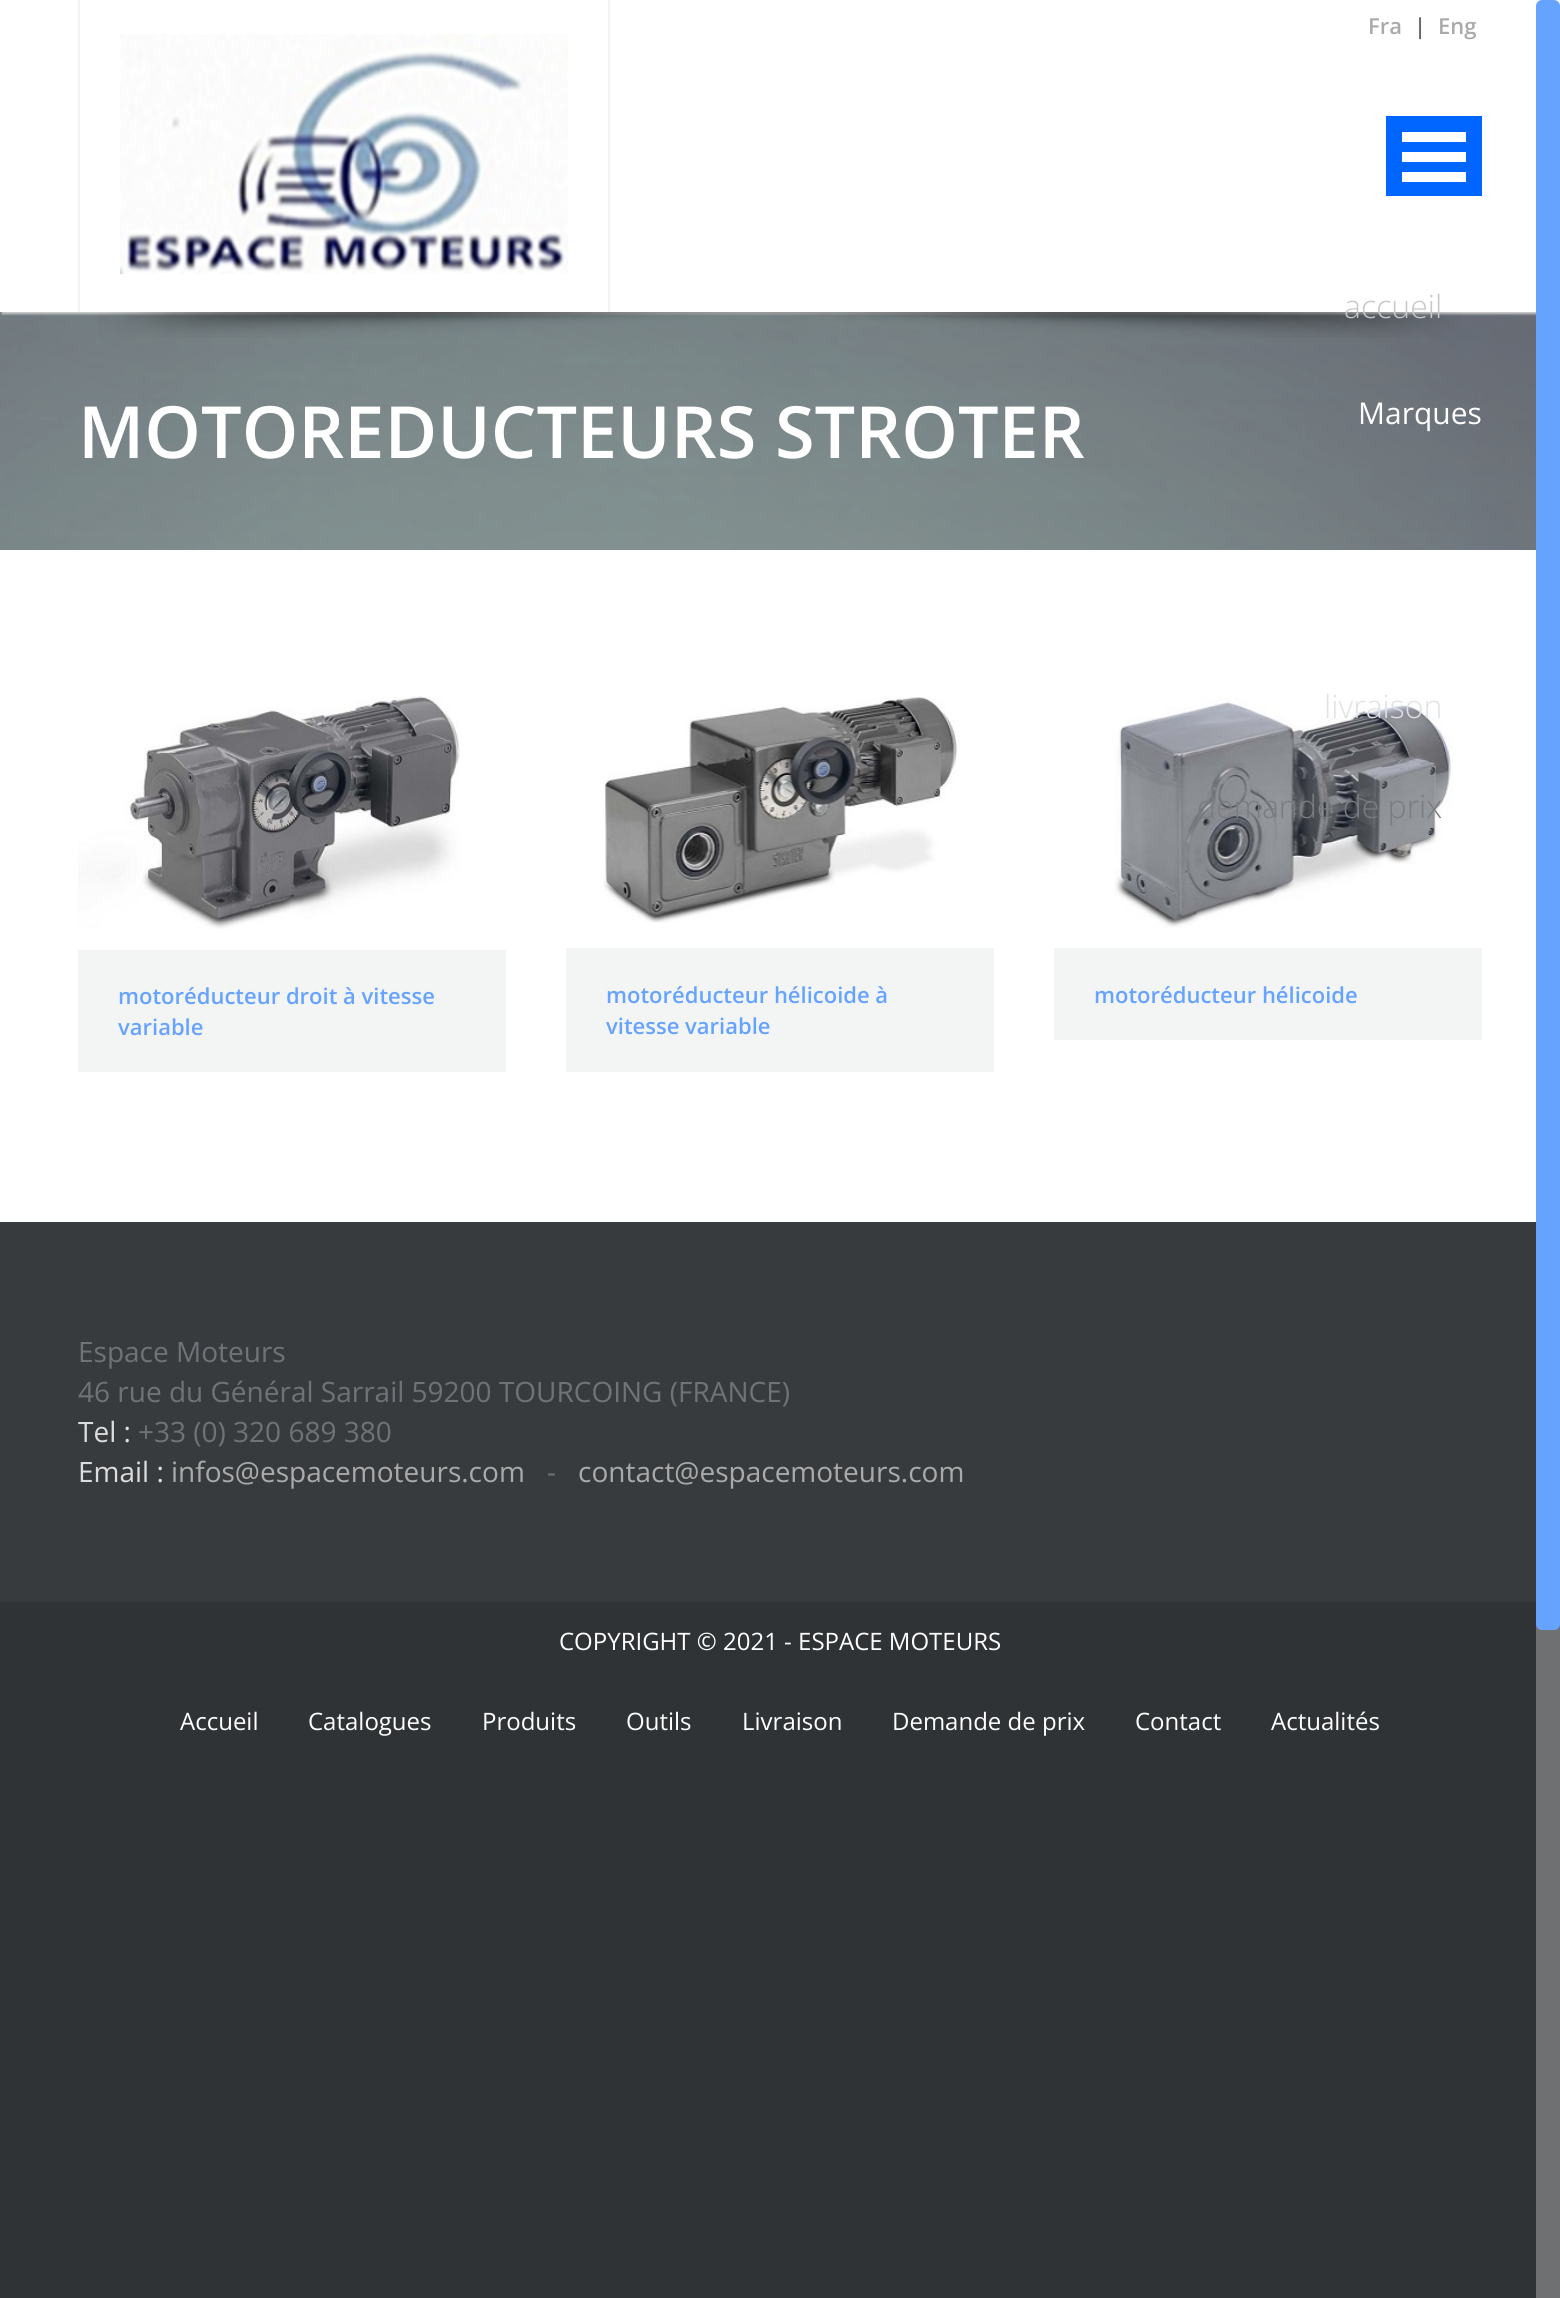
import math
import cairocffi as cairo

surface = cairo.ImageSurface(cairo.FORMAT_RGB24, 1560, 2298)
cr = cairo.Context(surface)
options = cairo.FontOptions()
options.set_hint_metrics(cairo.HINT_METRICS_OFF)
options.set_hint_style(cairo.HINT_STYLE_NONE)
cr.set_font_options(options)
cr.set_miter_limit(4)


def use_color(code):
    cr.set_source_rgb(*(v / 255 for v in bytes.fromhex(code[-6:])))


def round_rect(x, y, w, h, r):
    cr.new_sub_path()
    for i, (u, v) in enumerate([(x + w - r, y + h - r), (x + r, y + h - r), (x + r, y + r), (x + w - r, y + r)]):
        cr.arc(u, v, r, i * math.pi / 2, (i + 1) * math.pi / 2)
    cr.close_path()


def shadow(x, y, w, h, r, blur, alpha):
    cr.push_group_with_content(cairo.CONTENT_ALPHA)
    cr.set_operator(cairo.OPERATOR_SOURCE)
    for i in range(15, -16, -2):
        e = blur * i / 6
        if min(w, h) + 2 * e > 0:
            cr.set_source_rgba(0, 0, 0, alpha * math.erfc((i - 1) / 8.5) / 2)
            round_rect(x - e, y - e, w + 2 * e, h + 2 * e, max(0, min(r + e + blur * .6, min(w, h) / 2 + e)))
            cr.fill()
    cr.mask(cr.pop_group())


def picture(path, x, y, w, h):
    cr.save()
    cr.set_source_surface(cairo.ImageSurface.create_from_png(path), x, y)
    cr.rectangle(x, y, w, h)
    cr.fill()
    cr.restore()


use_color("#303335")
cr.paint()
use_color("#ffffff")
cr.rectangle(0, 0, 1560, 1222)
cr.fill()
picture("img3.png", 0, 312, 1536, 238)
cr.save()
cr.rectangle(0, 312, 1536, 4)
cr.clip()
use_color("#cccccc")
shadow(2, 2, 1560, 312, 0, 1, 1)
cr.restore()
use_color("#f2f2f2")
cr.rectangle(608, 0, 2, 312)
cr.fill()
cr.rectangle(78, 0, 2, 312)
cr.fill()
picture("img1.png", 120, 34, 448, 240)
cr.select_font_face("Open Sans SemiBold")
cr.set_font_size(22)
use_color("#aaaaaa")
cr.move_to(1368, 34)
cr.show_text("Fra")
use_color("#666666")
cr.move_to(1414, 34)
cr.show_text("|")
use_color("#aaaaaa")
cr.move_to(1438, 34)
cr.show_text("Eng")
use_color("#0066ff")
cr.rectangle(1386, 116, 96, 80)
cr.fill()
use_color("#ffffff")
cr.rectangle(1402, 172, 64, 10)
cr.fill()
cr.rectangle(1402, 152, 64, 10)
cr.fill()
cr.rectangle(1402, 132, 64, 10)
cr.fill()
picture("img2.png", 98, 312, 1363, 26)
cr.select_font_face("Open Sans Light")
cr.set_font_size(32)
use_color("#c6c7c9")
cr.move_to(1344, 318)
cr.show_text("accueil")
picture("img6.png", 1114, 698, 339, 230)
use_color("#e0e1e4")
cr.move_to(1324, 718)
cr.show_text("livraison")
use_color("#797c81")
cr.move_to(1197, 818)
cr.show_text("demande de prix")
cr.select_font_face("Open Sans SemiBold")
cr.set_font_size(72)
use_color("#ffffff")
cr.move_to(78, 458)
cr.show_text("MOTOREDUCTEURS STROTER")
cr.select_font_face("Open Sans")
cr.set_font_size(30)
cr.move_to(1358, 424)
cr.show_text("Marques")
picture("img4.png", 78, 696, 382, 233)
use_color("#f3f5f5")
cr.rectangle(78, 950, 428, 122)
cr.fill()
cr.select_font_face("Open Sans SemiBold")
cr.set_font_size(22)
use_color("#66a3ff")
cr.move_to(118, 1004)
cr.show_text("motoréducteur droit à vitesse")
cr.move_to(118, 1035)
cr.show_text("variable")
picture("img5.png", 603, 697, 355, 226)
use_color("#f3f5f5")
cr.rectangle(566, 948, 428, 124)
cr.fill()
use_color("#66a3ff")
cr.move_to(606, 1003)
cr.show_text("motoréducteur hélicoide à")
cr.move_to(606, 1034)
cr.show_text("vitesse variable")
use_color("#f3f5f5")
cr.rectangle(1054, 948, 428, 92)
cr.fill()
use_color("#66a3ff")
cr.move_to(1094, 1003)
cr.show_text("motoréducteur hélicoide")
use_color("#373b3e")
cr.rectangle(0, 1222, 1536, 380)
cr.fill()
cr.select_font_face("Open Sans")
cr.set_font_size(28)
use_color("#6f7377")
cr.move_to(78, 1362)
cr.show_text("Espace Moteurs")
cr.move_to(78, 1402)
cr.show_text("46 rue du Général Sarrail 59200 TOURCOING (FRANCE)")
use_color("#dddddd")
cr.move_to(78, 1442)
cr.show_text("Tel :")
use_color("#6f7377")
cr.move_to(138, 1442)
cr.show_text("+33 (0) 320 689 380")
use_color("#dddddd")
cr.move_to(78, 1482)
cr.show_text("Email :")
use_color("#aaaaaa")
cr.move_to(171, 1482)
cr.show_text("infos@espacemoteurs.com")
use_color("#6f7377")
cr.move_to(547, 1482)
cr.show_text("-")
use_color("#aaaaaa")
cr.move_to(578, 1482)
cr.show_text("contact@espacemoteurs.com")
cr.set_font_size(24)
use_color("#ffffff")
cr.move_to(559, 1650)
cr.show_text("COPYRIGHT © 2021 - ESPACE MOTEURS")
cr.move_to(180, 1730)
cr.show_text("Accueil")
cr.move_to(308, 1730)
cr.show_text("Catalogues")
cr.move_to(482, 1730)
cr.show_text("Produits")
cr.move_to(626, 1730)
cr.show_text("Outils")
cr.move_to(742, 1730)
cr.show_text("Livraison")
cr.move_to(892, 1730)
cr.show_text("Demande de prix")
cr.move_to(1135, 1730)
cr.show_text("Contact")
cr.move_to(1271, 1730)
cr.show_text("Actualités")
cr.set_source_rgba(1, 1, 1, 0.3)
cr.rectangle(1536, 312, 24, 1986)
cr.fill()
use_color("#66a3ff")
round_rect(1536, 0, 24, 1630, 6)
cr.fill()
surface.write_to_png("result.png")
